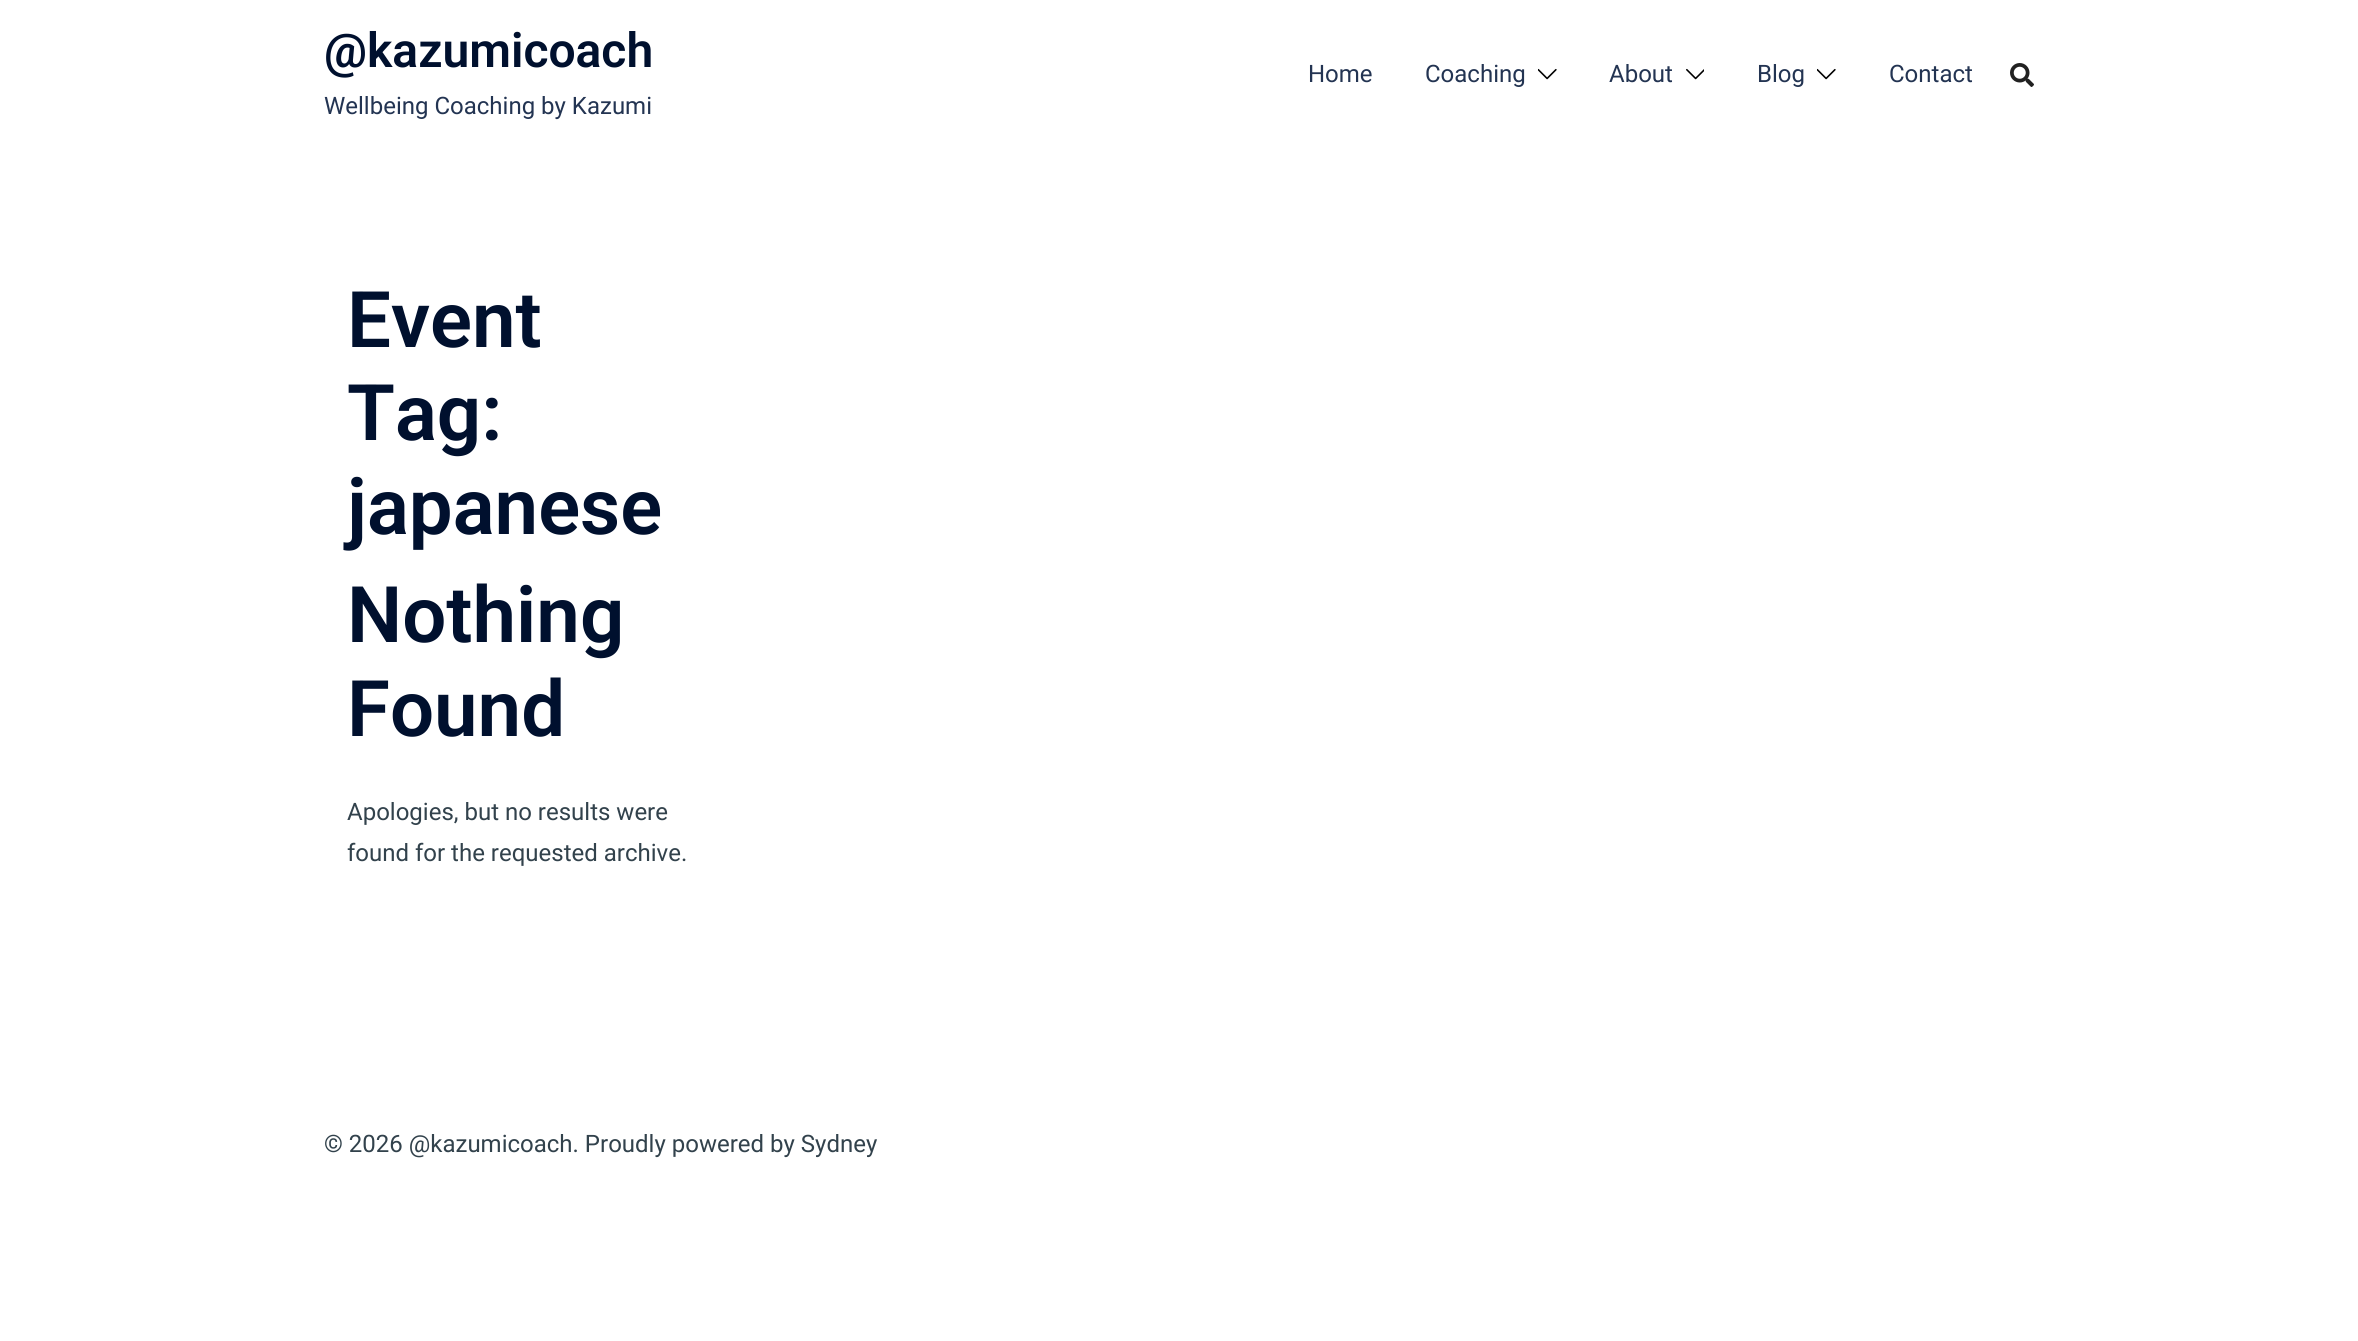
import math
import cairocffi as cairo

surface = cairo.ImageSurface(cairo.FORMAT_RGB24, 2358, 1341)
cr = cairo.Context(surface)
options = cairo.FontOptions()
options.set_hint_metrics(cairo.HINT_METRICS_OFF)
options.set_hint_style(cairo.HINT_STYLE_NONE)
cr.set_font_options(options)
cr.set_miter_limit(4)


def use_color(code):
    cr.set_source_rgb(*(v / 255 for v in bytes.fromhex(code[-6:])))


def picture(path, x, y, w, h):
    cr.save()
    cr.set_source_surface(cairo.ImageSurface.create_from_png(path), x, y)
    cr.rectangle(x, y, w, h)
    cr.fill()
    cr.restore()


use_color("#ffffff")
cr.paint()
cr.select_font_face("Roboto SemiBold")
cr.set_font_size(48)
use_color("#00102e")
cr.move_to(324, 67)
cr.show_text("@kazumicoach")
cr.select_font_face("Roboto")
cr.set_font_size(24)
use_color("#233452")
cr.move_to(324, 114)
cr.show_text("Wellbeing Coaching by Kazumi")
cr.move_to(1308, 82)
cr.show_text("Home")
cr.move_to(1425, 82)
cr.show_text("Coaching")
picture("img1.png", 1538, 68, 19, 12)
cr.move_to(1609, 82)
cr.show_text("About")
picture("img2.png", 1686, 68, 18, 12)
cr.move_to(1757, 82)
cr.show_text("Blog")
picture("img1.png", 1817, 68, 19, 12)
cr.move_to(1889, 82)
cr.show_text("Contact")
picture("img3.png", 2010, 63, 24, 24)
cr.select_font_face("Roboto SemiBold")
cr.set_font_size(78)
use_color("#00102e")
cr.move_to(347, 347)
cr.show_text("Event")
cr.move_to(347, 440)
cr.show_text("Tag:")
cr.move_to(347, 534)
cr.show_text("japanese")
cr.move_to(347, 642)
cr.show_text("Nothing")
cr.move_to(347, 736)
cr.show_text("Found")
cr.select_font_face("Roboto")
cr.set_font_size(24)
use_color("#32424c")
cr.move_to(347, 820)
cr.show_text("Apologies, but no results were")
cr.move_to(347, 861)
cr.show_text("found for the requested archive.")
cr.move_to(324, 1152)
cr.show_text("© 2026 @kazumicoach. Proudly powered by Sydney")
surface.write_to_png("result.png")
